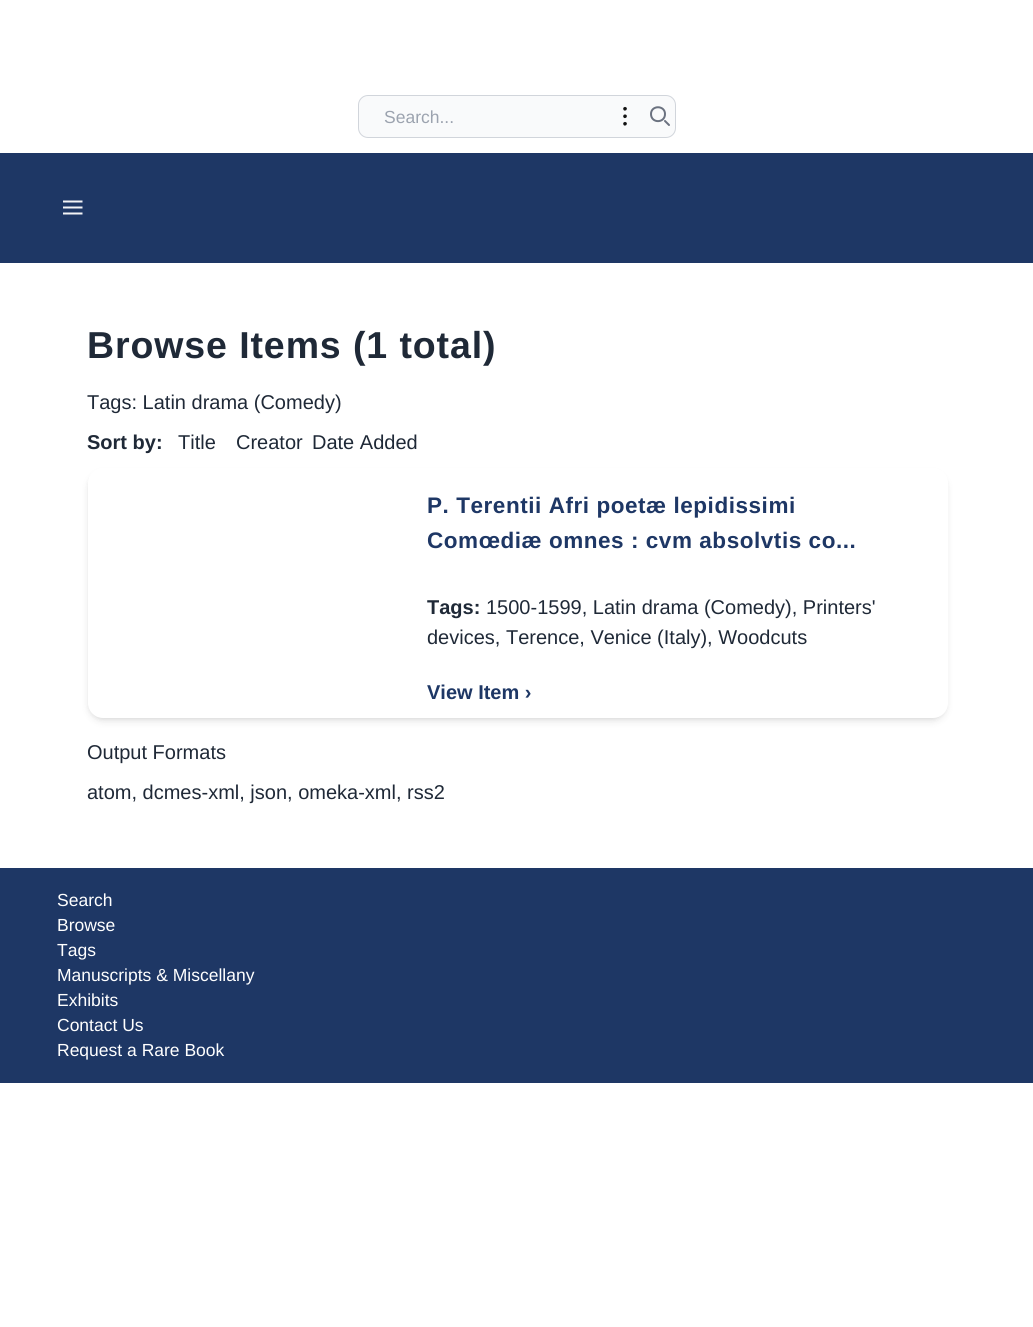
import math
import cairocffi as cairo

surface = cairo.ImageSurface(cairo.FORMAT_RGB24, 1033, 1327)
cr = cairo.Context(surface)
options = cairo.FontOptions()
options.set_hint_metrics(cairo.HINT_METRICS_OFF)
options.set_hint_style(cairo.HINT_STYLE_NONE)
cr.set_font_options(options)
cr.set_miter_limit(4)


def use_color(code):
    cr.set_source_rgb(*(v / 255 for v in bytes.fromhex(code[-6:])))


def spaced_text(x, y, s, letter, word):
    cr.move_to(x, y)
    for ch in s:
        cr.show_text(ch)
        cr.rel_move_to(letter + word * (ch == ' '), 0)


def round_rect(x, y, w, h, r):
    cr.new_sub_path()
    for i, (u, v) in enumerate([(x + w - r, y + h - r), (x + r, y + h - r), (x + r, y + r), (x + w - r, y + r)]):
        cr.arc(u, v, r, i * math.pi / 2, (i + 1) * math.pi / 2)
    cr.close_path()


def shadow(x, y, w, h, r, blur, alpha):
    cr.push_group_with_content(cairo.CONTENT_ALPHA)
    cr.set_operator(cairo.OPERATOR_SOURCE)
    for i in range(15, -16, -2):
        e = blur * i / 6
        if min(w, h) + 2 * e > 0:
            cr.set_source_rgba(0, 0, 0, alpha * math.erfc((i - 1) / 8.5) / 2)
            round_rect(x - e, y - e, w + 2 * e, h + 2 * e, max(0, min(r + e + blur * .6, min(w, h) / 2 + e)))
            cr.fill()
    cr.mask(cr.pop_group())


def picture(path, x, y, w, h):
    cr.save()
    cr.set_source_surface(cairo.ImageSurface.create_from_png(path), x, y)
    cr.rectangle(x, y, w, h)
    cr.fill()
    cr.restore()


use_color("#ffffff")
cr.paint()
use_color("#f9fafb")
round_rect(358.5, 95.5, 317, 42, 9.5)
cr.fill_preserve()
use_color("#d1d5db")
cr.set_line_width(1)
cr.stroke()
cr.select_font_face("Liberation Sans")
cr.set_font_size(17.5)
use_color("#9ca3af")
cr.move_to(384, 123)
cr.show_text("Search...")
picture("img1.png", 623, 106, 4, 20)
cr.new_path()
cr.move_to(669, 125)
cr.line_to(665, 121)
cr.move_to(665, 114)
cr.curve_to(665, 123.5, 651, 123.5, 651, 114)
cr.curve_to(651, 105, 665, 105, 665, 114)
cr.close_path()
use_color("#6b7280")
cr.set_line_width(2)
cr.set_line_cap(cairo.LINE_CAP_ROUND)
cr.set_line_join(cairo.LINE_JOIN_ROUND)
cr.stroke()
use_color("#1e3765")
cr.rectangle(0, 153, 1033, 110)
cr.fill()
picture("img2.png", 63, 200, 20, 15)
cr.select_font_face("Liberation Sans", cairo.FONT_SLANT_NORMAL, cairo.FONT_WEIGHT_BOLD)
cr.set_font_size(37.5)
use_color("#1f2937")
spaced_text(87, 358, "Browse Items (1 total)", 0.9, 0)
cr.select_font_face("Liberation Sans")
cr.set_font_size(20)
cr.move_to(87, 409)
cr.show_text("Tags: Latin drama (Comedy)")
cr.select_font_face("Liberation Sans", cairo.FONT_SLANT_NORMAL, cairo.FONT_WEIGHT_BOLD)
cr.move_to(87, 449)
cr.show_text("Sort by:")
cr.select_font_face("Liberation Sans")
cr.move_to(178, 449)
cr.show_text("Title")
cr.move_to(236, 449)
cr.show_text("Creator")
cr.move_to(312, 449)
cr.show_text("Date Added")
use_color("#000000")
shadow(90, 473, 855, 245, 13, 2.5, 0.1)
shadow(89, 474, 857, 247, 14, 4, 0.1)
use_color("#ffffff")
round_rect(88, 468, 860, 250, 15)
cr.fill()
cr.select_font_face("Liberation Sans", cairo.FONT_SLANT_NORMAL, cairo.FONT_WEIGHT_BOLD)
cr.set_font_size(22.5)
use_color("#1e3765")
spaced_text(427, 513, "P. Terentii Afri poetæ lepidissimi", 0.55, 0)
spaced_text(427, 548, "Comœdiæ omnes : cvm absolvtis co...", 0.55, 0)
cr.set_font_size(20)
use_color("#1f2937")
cr.move_to(427, 614)
cr.show_text("Tags:")
cr.select_font_face("Liberation Sans")
cr.move_to(486, 614)
cr.show_text("1500-1599, Latin drama (Comedy), Printers'")
cr.move_to(427, 644)
cr.show_text("devices, Terence, Venice (Italy), Woodcuts")
cr.select_font_face("Liberation Sans", cairo.FONT_SLANT_NORMAL, cairo.FONT_WEIGHT_BOLD)
use_color("#1e3765")
cr.move_to(427, 699)
cr.show_text("View Item ›")
cr.select_font_face("Liberation Sans")
use_color("#1f2937")
cr.move_to(87, 759)
cr.show_text("Output Formats")
cr.move_to(87, 799)
cr.show_text("atom, dcmes-xml, json, omeka-xml, rss2")
use_color("#1e3765")
cr.rectangle(0, 868, 1033, 215)
cr.fill()
cr.set_font_size(17.5)
use_color("#ffffff")
cr.move_to(57, 906)
cr.show_text("Search")
cr.move_to(57, 931)
cr.show_text("Browse")
cr.move_to(57, 956)
cr.show_text("Tags")
cr.move_to(57, 981)
cr.show_text("Manuscripts & Miscellany")
cr.move_to(57, 1006)
cr.show_text("Exhibits")
cr.move_to(57, 1031)
cr.show_text("Contact Us")
cr.move_to(57, 1056)
cr.show_text("Request a Rare Book")
surface.write_to_png("result.png")
